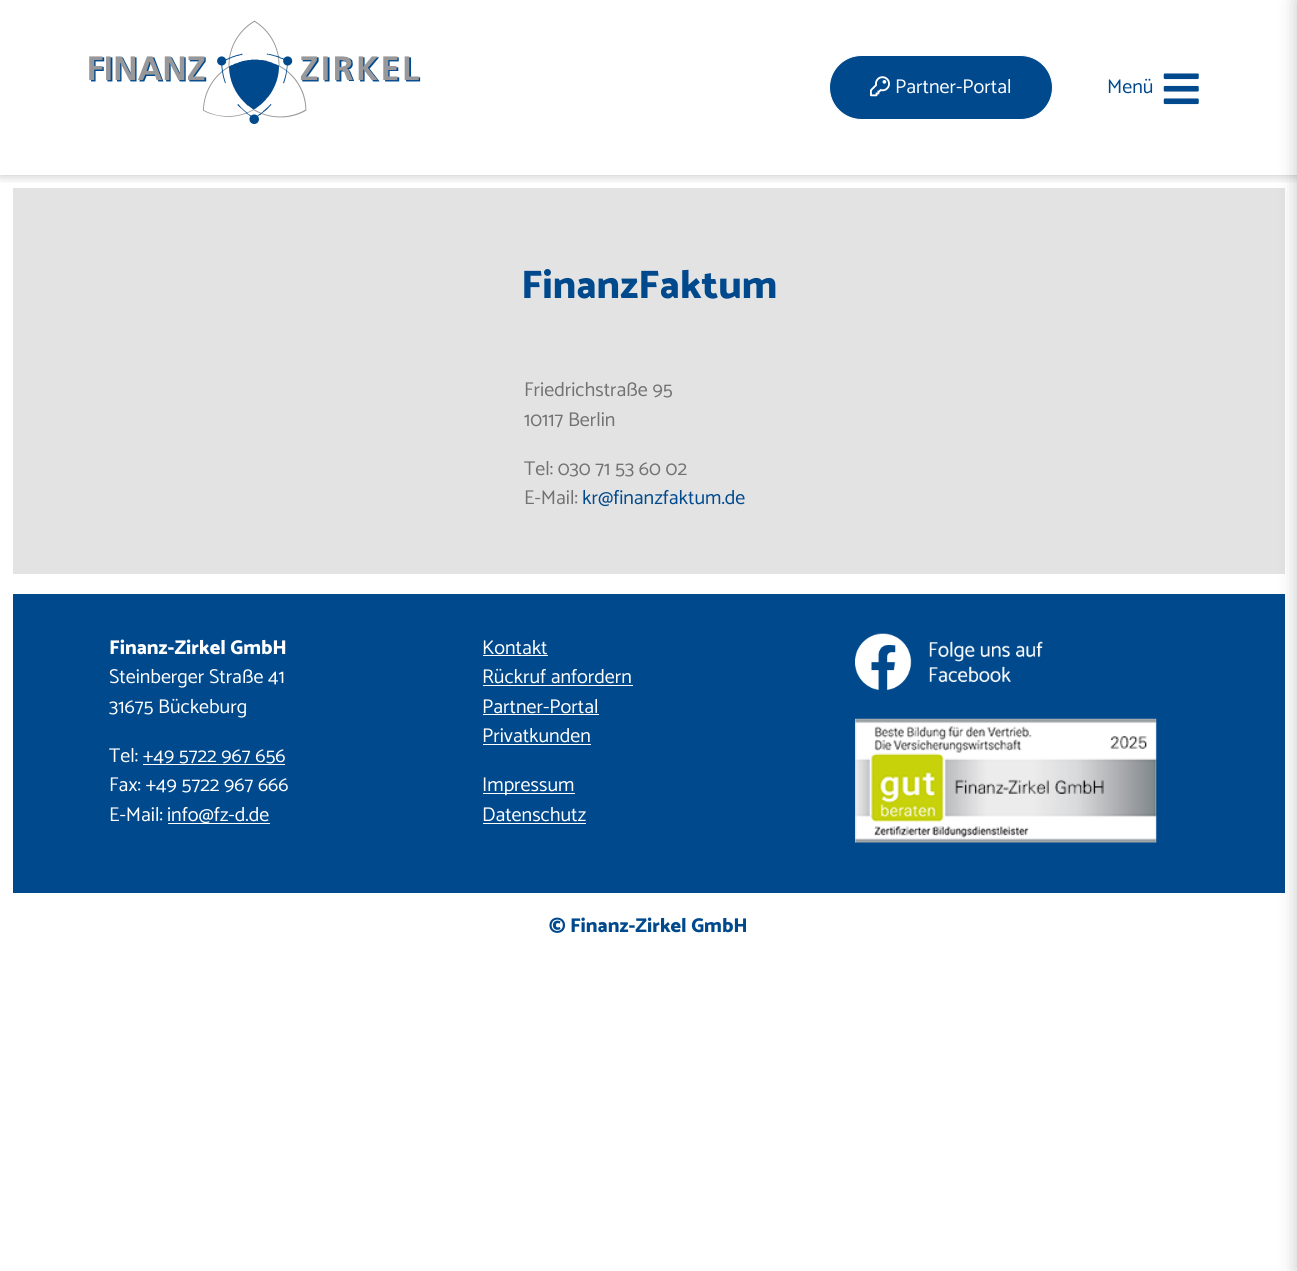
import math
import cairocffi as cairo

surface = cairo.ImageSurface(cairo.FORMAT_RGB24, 1297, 1271)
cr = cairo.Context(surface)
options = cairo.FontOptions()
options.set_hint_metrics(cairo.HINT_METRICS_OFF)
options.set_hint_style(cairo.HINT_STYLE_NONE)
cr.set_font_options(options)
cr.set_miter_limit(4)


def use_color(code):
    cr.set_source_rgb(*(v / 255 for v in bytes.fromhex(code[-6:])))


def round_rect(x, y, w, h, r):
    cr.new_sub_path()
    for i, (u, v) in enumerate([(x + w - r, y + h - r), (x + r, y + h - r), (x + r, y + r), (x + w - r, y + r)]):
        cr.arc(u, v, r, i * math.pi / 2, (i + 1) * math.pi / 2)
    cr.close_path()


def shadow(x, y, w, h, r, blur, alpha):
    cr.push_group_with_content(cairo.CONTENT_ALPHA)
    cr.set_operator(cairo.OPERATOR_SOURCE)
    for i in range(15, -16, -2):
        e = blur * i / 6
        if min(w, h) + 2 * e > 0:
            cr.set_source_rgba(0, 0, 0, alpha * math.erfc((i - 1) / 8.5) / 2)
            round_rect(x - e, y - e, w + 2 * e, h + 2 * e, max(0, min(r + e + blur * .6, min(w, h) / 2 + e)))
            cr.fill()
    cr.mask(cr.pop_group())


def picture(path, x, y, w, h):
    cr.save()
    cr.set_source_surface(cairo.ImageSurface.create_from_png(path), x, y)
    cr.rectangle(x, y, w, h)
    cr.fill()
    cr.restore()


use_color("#ffffff")
cr.paint()
use_color("#e3e3e3")
cr.rectangle(13, 188, 1272, 386)
cr.fill()
cr.save()
cr.rectangle(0, 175, 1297, 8)
cr.clip()
use_color("#000000")
shadow(0, 0, 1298, 175, 0, 6, 0.25)
cr.restore()
picture("img1.png", 89, 20, 332, 104)
use_color("#00498d")
round_rect(829.5, 55.5, 223, 64, 32)
cr.fill_preserve()
use_color("#ffffff")
cr.set_line_width(1)
cr.stroke()
picture("img2.png", 870, 76, 20, 21)
cr.select_font_face("Catamaran")
cr.set_font_size(20)
cr.move_to(895, 93)
cr.show_text("Partner-Portal")
use_color("#00498d")
cr.move_to(1107, 93)
cr.show_text("Menü")
picture("img3.png", 1163, 73, 36, 32)
cr.rectangle(13, 594, 1272, 299)
cr.fill()
use_color("#000000")
shadow(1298, 0, 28, 1271, 0, 9.5, 0.25)
cr.select_font_face("Catamaran ExtraBold")
cr.set_font_size(40)
use_color("#00498d")
cr.move_to(521, 298)
cr.show_text("FinanzFaktum")
cr.select_font_face("Catamaran")
cr.set_font_size(20)
use_color("#727272")
cr.move_to(524, 396)
cr.show_text("Friedrichstraße 95")
cr.move_to(524, 426)
cr.show_text("10117 Berlin")
cr.move_to(524, 475)
cr.show_text("Tel: 030 71 53 60 02")
cr.move_to(524, 504)
cr.show_text("E-Mail:")
use_color("#00498d")
cr.move_to(582, 504)
cr.show_text("kr@finanzfaktum.de")
cr.select_font_face("Catamaran ExtraBold")
use_color("#ffffff")
cr.move_to(109, 654)
cr.show_text("Finanz-Zirkel GmbH")
cr.select_font_face("Catamaran")
cr.move_to(109, 683)
cr.show_text("Steinberger Straße 41")
cr.move_to(109, 713)
cr.show_text("31675 Bückeburg")
cr.move_to(109, 762)
cr.show_text("Tel: +49 5722 967 656")
cr.rectangle(143, 764, 142, 1)
cr.fill()
cr.move_to(109, 791)
cr.show_text("Fax: +49 5722 967 666")
cr.move_to(109, 821)
cr.show_text("E-Mail:")
cr.rectangle(168, 823, 102, 1)
cr.fill()
cr.move_to(167, 821)
cr.show_text("info@fz-d.de")
cr.move_to(482, 654)
cr.show_text("Kontakt")
cr.rectangle(483, 655, 65, 1)
cr.fill()
cr.move_to(482, 683)
cr.show_text("Rückruf anfordern")
cr.rectangle(483, 685, 150, 1)
cr.fill()
cr.move_to(482, 713)
cr.show_text("Partner-Portal")
cr.rectangle(483, 714, 116, 1)
cr.fill()
cr.move_to(482, 742)
cr.show_text("Privatkunden")
cr.rectangle(483, 744, 108, 1)
cr.fill()
cr.rectangle(483, 793, 92, 1)
cr.fill()
cr.move_to(482, 791)
cr.show_text("Impressum")
cr.move_to(482, 821)
cr.show_text("Datenschutz")
cr.rectangle(483, 823, 103, 1)
cr.fill()
picture("img4.png", 855, 633, 188, 57)
picture("img5.png", 855, 718, 302, 125)
cr.select_font_face("Catamaran ExtraBold")
use_color("#00498d")
cr.move_to(549, 932)
cr.show_text("© Finanz-Zirkel GmbH")
surface.write_to_png("result.png")
